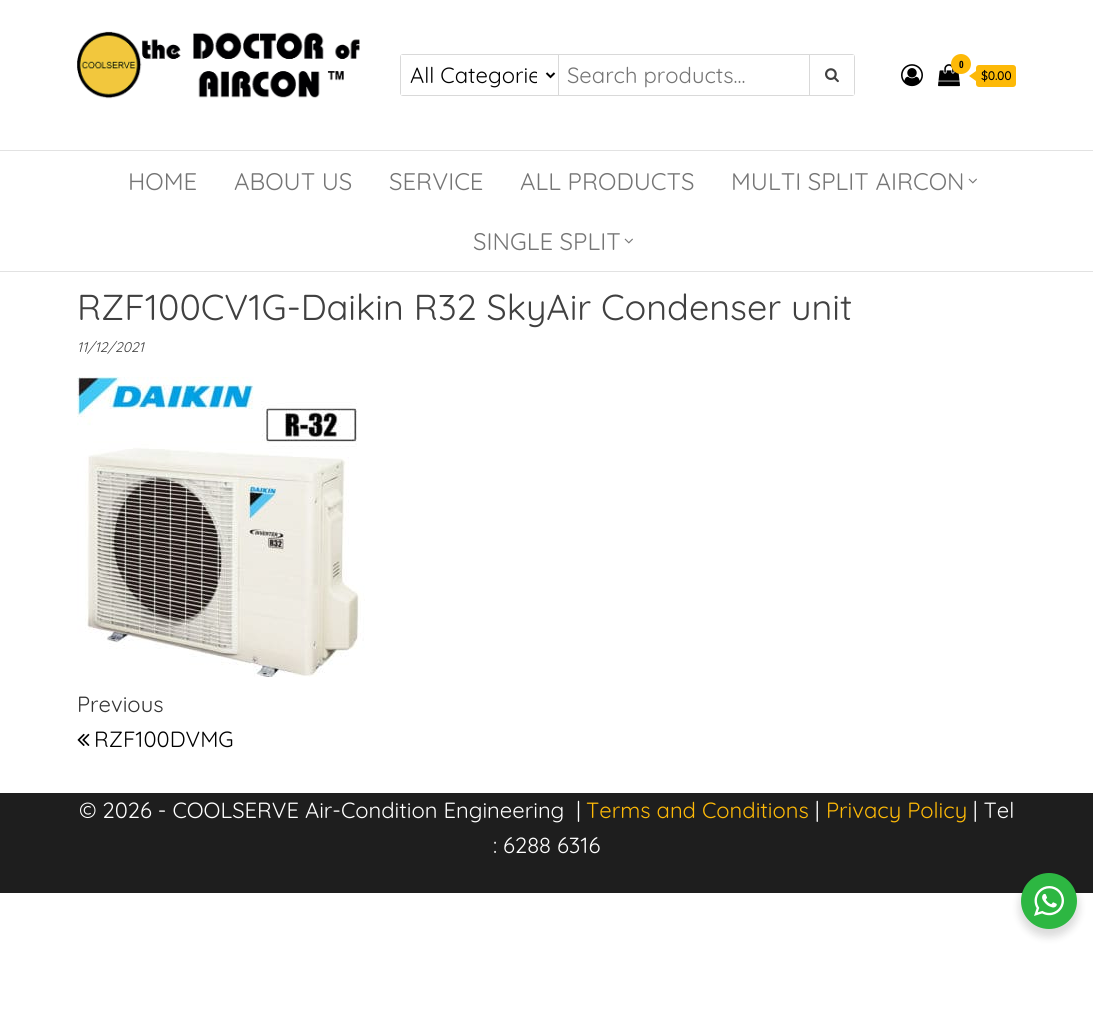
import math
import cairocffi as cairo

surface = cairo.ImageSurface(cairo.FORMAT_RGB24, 1093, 1009)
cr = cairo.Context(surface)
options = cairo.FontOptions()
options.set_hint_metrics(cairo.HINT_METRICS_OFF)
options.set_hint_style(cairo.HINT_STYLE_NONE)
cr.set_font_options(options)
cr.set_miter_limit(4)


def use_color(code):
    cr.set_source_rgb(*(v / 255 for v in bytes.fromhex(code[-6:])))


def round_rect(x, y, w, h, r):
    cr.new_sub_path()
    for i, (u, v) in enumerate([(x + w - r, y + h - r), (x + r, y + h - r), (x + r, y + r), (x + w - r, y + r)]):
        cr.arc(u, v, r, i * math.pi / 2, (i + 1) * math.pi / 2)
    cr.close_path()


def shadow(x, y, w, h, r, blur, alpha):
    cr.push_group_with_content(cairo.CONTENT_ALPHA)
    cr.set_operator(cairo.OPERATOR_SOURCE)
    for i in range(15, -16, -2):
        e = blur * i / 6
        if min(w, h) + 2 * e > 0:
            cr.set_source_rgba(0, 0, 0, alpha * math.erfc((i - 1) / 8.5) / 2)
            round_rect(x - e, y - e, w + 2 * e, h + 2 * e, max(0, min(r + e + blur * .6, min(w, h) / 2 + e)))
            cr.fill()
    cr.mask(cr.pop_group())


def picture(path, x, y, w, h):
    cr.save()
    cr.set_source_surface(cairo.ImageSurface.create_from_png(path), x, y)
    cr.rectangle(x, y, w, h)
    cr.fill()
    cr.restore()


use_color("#ffffff")
cr.paint()
picture("img1.png", 77, 31, 283, 68)
round_rect(400.5, 54.5, 454, 41, 2.5)
use_color("#d9d9d9")
cr.set_line_width(1)
cr.stroke()
use_color("#ffffff")
cr.rectangle(401, 55, 2, 40)
cr.fill()
use_color("#d9d9d9")
cr.rectangle(558, 55, 1, 40)
cr.fill()
cr.new_path()
cr.move_to(546.5, 73)
cr.line_to(550.5, 77)
cr.line_to(554.5, 73)
use_color("#000000")
cr.set_line_width(2)
cr.stroke()
cr.save()
cr.rectangle(410, 60, 127, 30)
cr.clip()
cr.select_font_face("Quicksand")
cr.set_font_size(22)
cr.move_to(410, 83)
cr.show_text("All Categorie")
cr.restore()
use_color("#ffffff")
cr.rectangle(852, 55, 2, 40)
cr.fill()
cr.select_font_face("Quicksand")
cr.set_font_size(22)
use_color("#757575")
cr.move_to(567, 83)
cr.show_text("Search products...")
use_color("#d9d9d9")
cr.rectangle(809, 55, 1, 40)
cr.fill()
picture("img2.png", 825, 68, 14, 15)
picture("img3.png", 901, 64, 22, 23)
picture("img4.png", 938, 64, 22, 23)
use_color("#fdb907")
cr.arc(961, 64, 10, 0, 2 * math.pi)
cr.fill()
cr.select_font_face("Open Sans Condensed", cairo.FONT_SLANT_NORMAL, cairo.FONT_WEIGHT_BOLD)
cr.set_font_size(10)
use_color("#000000")
cr.move_to(959, 68)
cr.show_text("0")
use_color("#fdb907")
round_rect(976, 65, 40, 22, 3)
cr.fill()
cr.new_path()
cr.move_to(976, 71)
cr.line_to(976, 81)
cr.line_to(969, 76)
cr.close_path()
cr.fill()
cr.select_font_face("Quicksand", cairo.FONT_SLANT_NORMAL, cairo.FONT_WEIGHT_BOLD)
cr.set_font_size(12)
use_color("#000000")
cr.move_to(981, 80)
cr.show_text("$0.00")
use_color("#e2e2e2")
cr.rectangle(0, 150, 1093, 1)
cr.fill()
cr.rectangle(0, 271, 1093, 1)
cr.fill()
cr.select_font_face("Quicksand")
cr.set_font_size(24)
use_color("#757575")
cr.move_to(128, 190)
cr.show_text("HOME")
cr.move_to(234, 190)
cr.show_text("ABOUT US")
cr.move_to(389, 190)
cr.show_text("SERVICE")
cr.move_to(520, 190)
cr.show_text("ALL PRODUCTS")
cr.move_to(731, 190)
cr.show_text("MULTI SPLIT AIRCON")
picture("img5.png", 968, 178, 9, 6)
cr.move_to(473, 250)
cr.show_text("SINGLE SPLIT")
picture("img5.png", 624, 238, 9, 6)
cr.set_font_size(36)
use_color("#404040")
cr.move_to(77, 320)
cr.show_text("RZF100CV1G-Daikin R32 SkyAir Condenser unit")
cr.select_font_face("Quicksand", cairo.FONT_SLANT_ITALIC)
cr.set_font_size(14)
cr.move_to(77, 352)
cr.show_text("11/12/2021")
picture("img6.png", 77, 377, 288, 300)
cr.select_font_face("Quicksand")
cr.set_font_size(22)
use_color("#333333")
cr.move_to(77, 712)
cr.show_text("Previous")
picture("img7.png", 77, 733, 13, 13)
use_color("#000000")
cr.move_to(94, 747)
cr.show_text("RZF100DVMG")
use_color("#1e1e1e")
cr.rectangle(0, 793, 1093, 100)
cr.fill()
use_color("#ffffff")
cr.move_to(79, 818)
cr.show_text("© 2026 - COOLSERVE Air-Condition Engineering  |")
use_color("#fdb907")
cr.move_to(586, 818)
cr.show_text("Terms and Conditions")
use_color("#ffffff")
cr.move_to(815, 818)
cr.show_text("|")
use_color("#fdb907")
cr.move_to(826, 818)
cr.show_text("Privacy Policy")
use_color("#ffffff")
cr.move_to(973, 818)
cr.show_text("| Tel")
cr.move_to(493, 853)
cr.show_text(": 6288 6316")
use_color("#000000")
shadow(1019, 877, 60, 60, 30, 4, 0.14)
use_color("#2db742")
cr.arc(1049, 901, 28, 0, 2 * math.pi)
cr.fill()
picture("img8.png", 1034, 886, 30, 30)
surface.write_to_png("result.png")
